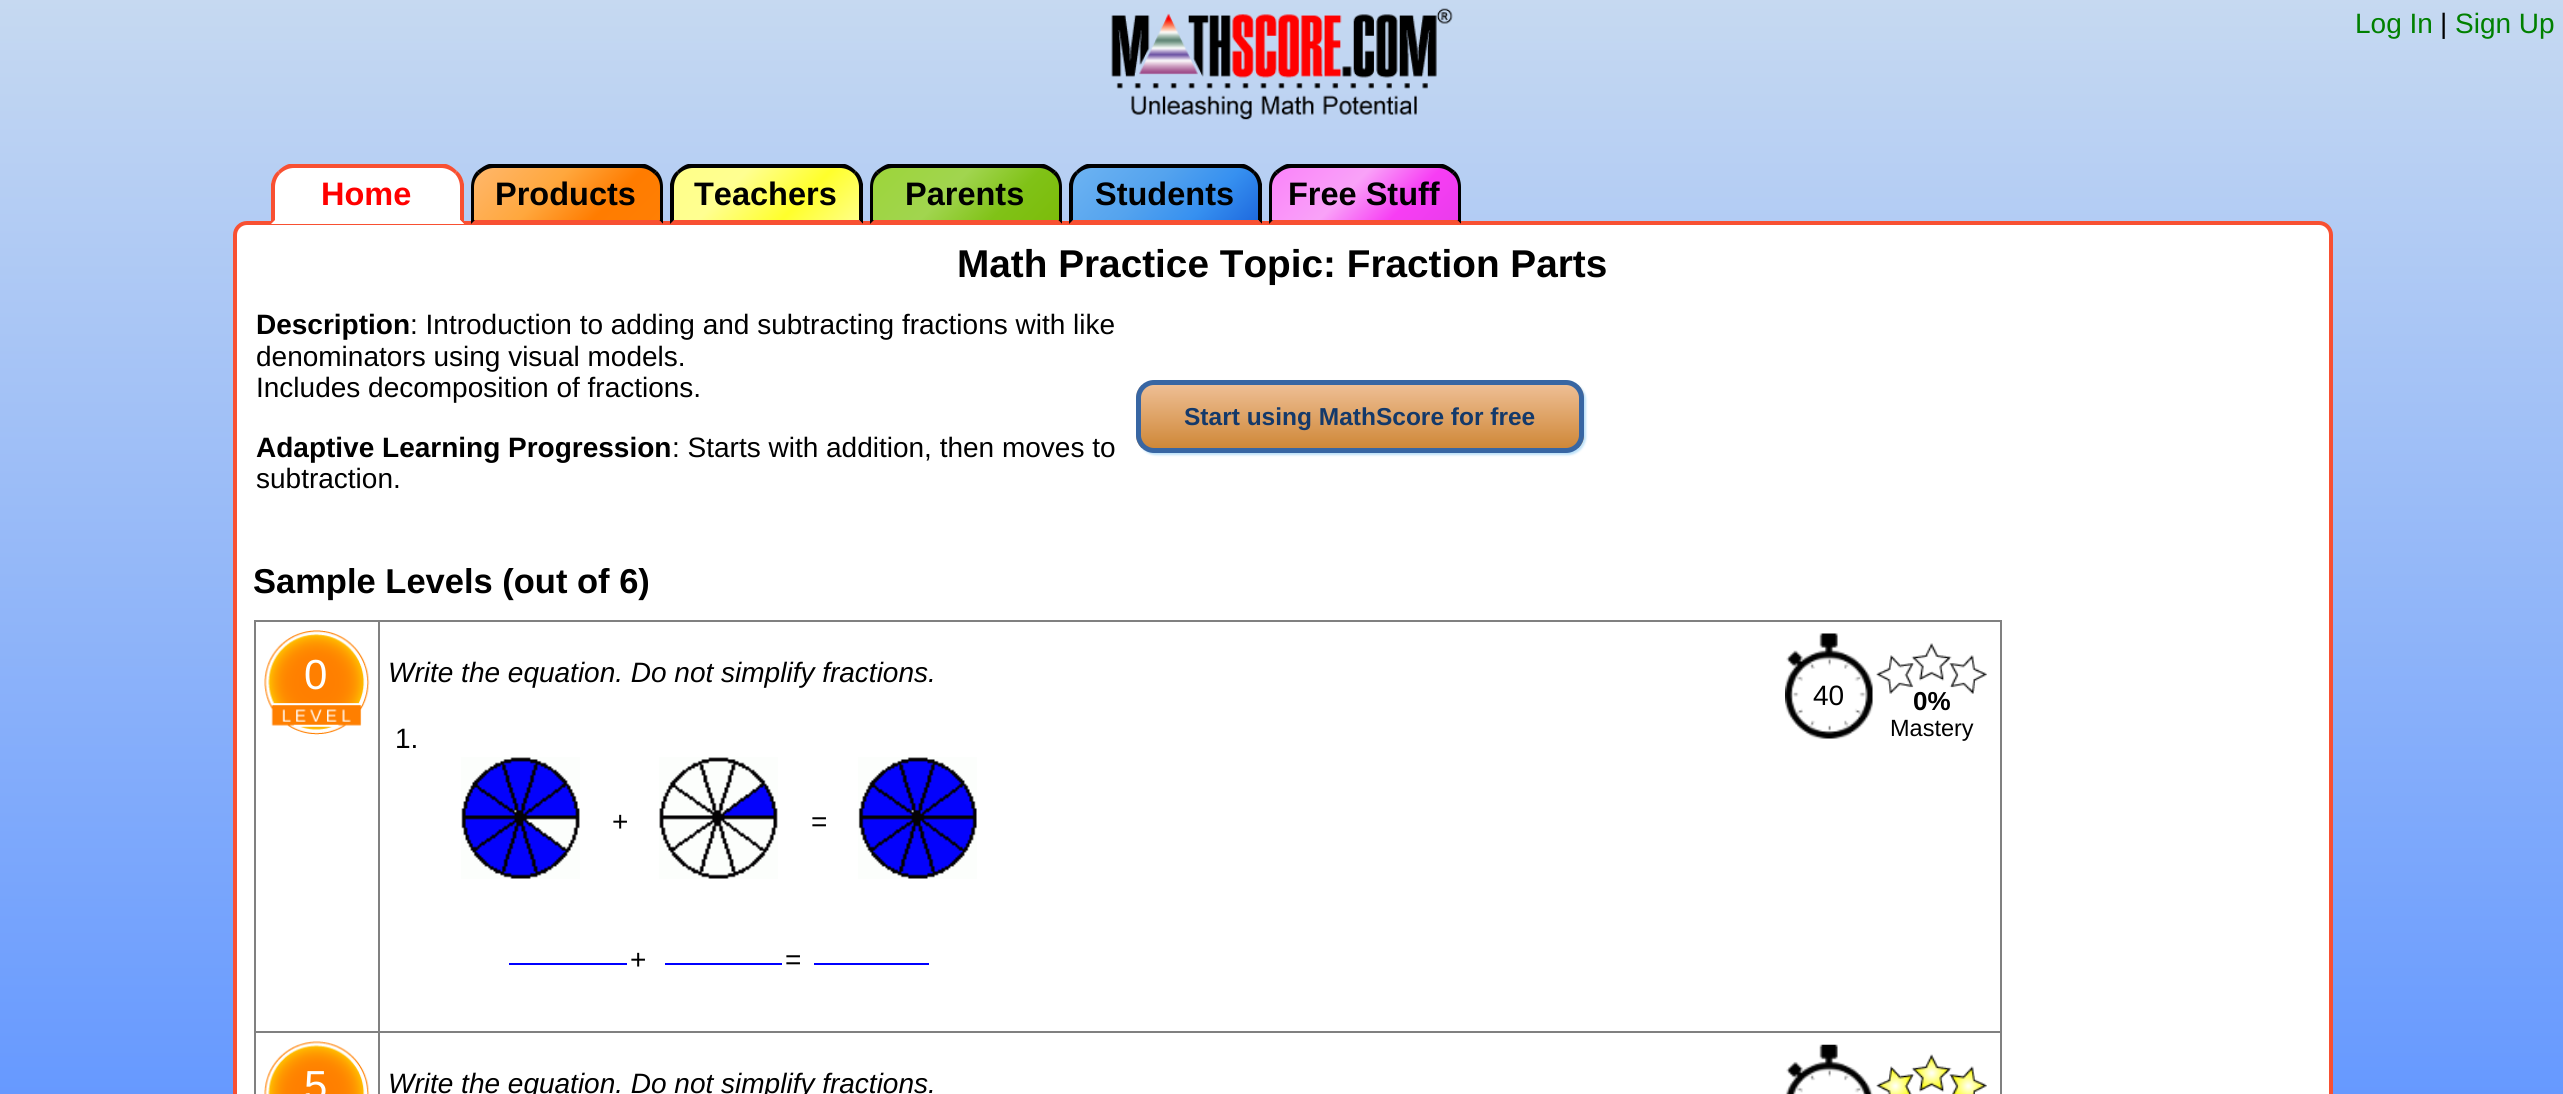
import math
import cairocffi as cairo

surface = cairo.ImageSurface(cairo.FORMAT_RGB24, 2563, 1094)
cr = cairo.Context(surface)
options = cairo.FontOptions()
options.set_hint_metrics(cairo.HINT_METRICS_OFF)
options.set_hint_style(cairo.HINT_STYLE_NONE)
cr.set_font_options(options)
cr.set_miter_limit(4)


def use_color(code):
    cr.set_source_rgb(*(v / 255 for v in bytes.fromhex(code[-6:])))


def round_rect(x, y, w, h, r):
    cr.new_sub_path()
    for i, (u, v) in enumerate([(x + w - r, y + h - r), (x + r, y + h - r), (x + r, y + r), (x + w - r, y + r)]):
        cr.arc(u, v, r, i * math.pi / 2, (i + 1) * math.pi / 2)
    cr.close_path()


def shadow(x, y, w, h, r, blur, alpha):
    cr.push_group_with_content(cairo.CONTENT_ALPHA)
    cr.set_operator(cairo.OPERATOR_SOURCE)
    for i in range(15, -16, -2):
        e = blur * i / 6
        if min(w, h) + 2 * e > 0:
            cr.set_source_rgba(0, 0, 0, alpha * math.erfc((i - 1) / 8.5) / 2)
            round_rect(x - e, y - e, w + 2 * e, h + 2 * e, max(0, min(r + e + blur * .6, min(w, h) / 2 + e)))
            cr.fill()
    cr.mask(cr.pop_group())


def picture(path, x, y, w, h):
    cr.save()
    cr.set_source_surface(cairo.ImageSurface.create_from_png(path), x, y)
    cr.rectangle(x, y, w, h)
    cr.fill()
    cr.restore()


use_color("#ffffff")
cr.paint()
gradient = cairo.LinearGradient(0, 0, 0, 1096)
gradient.add_color_stop_rgba(0, 0.776, 0.851, 0.945, 1)
gradient.add_color_stop_rgba(1, 0.4, 0.6, 1, 1)
cr.set_source(gradient)
cr.rectangle(0, 0, 2563, 1094)
cr.fill()
picture("img1.png", 1111, 8, 342, 112)
cr.select_font_face("Liberation Sans")
cr.set_font_size(28)
use_color("#008000")
cr.move_to(2355, 33)
cr.show_text("Log In")
use_color("#000000")
cr.move_to(2440, 33)
cr.show_text("|")
use_color("#008000")
cr.move_to(2455, 33)
cr.show_text("Sign Up")
use_color("#ffffff")
round_rect(235, 223, 2096, 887, 12)
cr.fill_preserve()
use_color("#f85032")
cr.set_line_width(4)
cr.stroke()
use_color("#ffffff")
cr.new_path()
cr.move_to(294, 165)
cr.line_to(441, 165)
cr.curve_to(453.5, 165, 464, 175.5, 464, 188)
cr.line_to(464, 224)
cr.line_to(271, 224)
cr.line_to(271, 188)
cr.curve_to(271, 175.5, 281.5, 165, 294, 165)
cr.close_path()
cr.fill()
use_color("#f85032")
cr.new_path()
cr.move_to(294, 168)
cr.curve_to(289, 168, 284, 170, 280, 174)
cr.line_to(278, 171)
cr.curve_to(281, 168, 285, 165, 289, 164)
cr.line_to(446, 164)
cr.curve_to(450, 165, 454, 168, 457, 171)
cr.line_to(455, 174)
cr.curve_to(451, 170, 446, 168, 441, 168)
cr.close_path()
cr.fill()
cr.new_path()
cr.move_to(464, 184)
cr.line_to(464, 224)
cr.line_to(460, 220)
cr.line_to(460, 187)
cr.curve_to(460, 182, 458, 177, 455, 174)
cr.line_to(457, 171)
cr.curve_to(461, 174, 463, 179, 464, 184)
cr.close_path()
cr.fill()
use_color("#ffffff")
cr.new_path()
cr.move_to(464, 224)
cr.line_to(460, 220)
cr.line_to(275, 220)
cr.line_to(271, 224)
cr.close_path()
cr.fill()
use_color("#f85032")
cr.new_path()
cr.move_to(271, 224)
cr.line_to(271, 184)
cr.curve_to(272, 179, 274, 174, 278, 171)
cr.line_to(280, 174)
cr.curve_to(277, 177, 275, 182, 275, 187)
cr.line_to(275, 220)
cr.close_path()
cr.fill()
cr.select_font_face("Liberation Sans", cairo.FONT_SLANT_NORMAL, cairo.FONT_WEIGHT_BOLD)
cr.set_font_size(32.5)
use_color("#ff0000")
cr.move_to(321, 205)
cr.show_text("Home")
cr.save()
cr.new_path()
cr.move_to(494, 165)
cr.line_to(640, 165)
cr.curve_to(652.5, 165, 663, 175.5, 663, 188)
cr.line_to(663, 224)
cr.line_to(471, 224)
cr.line_to(471, 188)
cr.curve_to(471, 175.5, 481.5, 165, 494, 165)
cr.close_path()
cr.clip()
gradient = cairo.LinearGradient(508, 135, 627, 254)
gradient.add_color_stop_rgba(0, 1, 0.718, 0.42, 1)
gradient.add_color_stop_rgba(0.4, 1, 0.655, 0.239, 1)
gradient.add_color_stop_rgba(0.71, 1, 0.486, 0, 1)
gradient.add_color_stop_rgba(1, 1, 0.498, 0.016, 1)
cr.set_source(gradient)
cr.rectangle(474, 168, 186, 53)
cr.fill()
cr.restore()
use_color("#000000")
cr.new_path()
cr.move_to(494, 168)
cr.curve_to(489, 168, 484, 170, 480, 174)
cr.line_to(477, 171)
cr.curve_to(481, 168, 485, 165, 489, 164)
cr.line_to(645, 164)
cr.curve_to(649, 165, 653, 168, 657, 171)
cr.line_to(654, 174)
cr.curve_to(650, 170, 645, 168, 640, 168)
cr.close_path()
cr.fill()
cr.new_path()
cr.move_to(657, 171)
cr.curve_to(661, 175, 663, 181, 663, 187)
cr.line_to(663, 224)
cr.line_to(659, 220)
cr.line_to(660, 220)
cr.line_to(660, 187)
cr.curve_to(660, 182, 658, 177, 654, 174)
cr.close_path()
cr.fill()
use_color("#f85032")
cr.new_path()
cr.move_to(471, 224)
cr.line_to(663, 224)
cr.line_to(659, 220)
cr.line_to(475, 220)
cr.close_path()
cr.fill()
use_color("#000000")
cr.new_path()
cr.move_to(471, 224)
cr.line_to(471, 187)
cr.curve_to(471, 181, 473, 175, 477, 171)
cr.line_to(480, 174)
cr.curve_to(476, 177, 474, 182, 474, 187)
cr.line_to(474, 220)
cr.line_to(475, 220)
cr.close_path()
cr.fill()
cr.move_to(495, 205)
cr.show_text("Products")
cr.save()
cr.new_path()
cr.move_to(693, 165)
cr.line_to(840, 165)
cr.curve_to(852.5, 165, 863, 175.5, 863, 188)
cr.line_to(863, 224)
cr.line_to(670, 224)
cr.line_to(670, 188)
cr.curve_to(670, 175.5, 680.5, 165, 693, 165)
cr.close_path()
cr.clip()
gradient = cairo.LinearGradient(707, 135, 826, 254)
gradient.add_color_stop_rgba(0, 1, 1, 0.533, 1)
gradient.add_color_stop_rgba(0.32, 1, 1, 0.569, 1)
gradient.add_color_stop_rgba(0.67, 1, 1, 0.169, 1)
gradient.add_color_stop_rgba(1, 1, 1, 0.533, 1)
cr.set_source(gradient)
cr.rectangle(674, 168, 185, 52)
cr.fill()
cr.restore()
cr.new_path()
cr.move_to(693, 168)
cr.curve_to(688, 168, 683, 170, 679, 174)
cr.line_to(677, 171)
cr.curve_to(680, 168, 684, 165, 688, 164)
cr.line_to(845, 164)
cr.curve_to(849, 165, 853, 168, 856, 171)
cr.line_to(854, 174)
cr.curve_to(850, 170, 845, 168, 840, 168)
cr.close_path()
cr.fill()
cr.new_path()
cr.move_to(863, 184)
cr.line_to(863, 224)
cr.line_to(859, 220)
cr.line_to(859, 187)
cr.curve_to(859, 182, 857, 177, 854, 174)
cr.line_to(856, 171)
cr.curve_to(860, 174, 862, 179, 863, 184)
cr.close_path()
cr.fill()
use_color("#f85032")
cr.new_path()
cr.move_to(863, 224)
cr.line_to(859, 220)
cr.line_to(674, 220)
cr.line_to(670, 224)
cr.close_path()
cr.fill()
use_color("#000000")
cr.new_path()
cr.move_to(670, 224)
cr.line_to(670, 184)
cr.curve_to(671, 179, 673, 174, 677, 171)
cr.line_to(679, 174)
cr.curve_to(676, 177, 674, 182, 674, 187)
cr.line_to(674, 220)
cr.close_path()
cr.fill()
cr.move_to(694, 205)
cr.show_text("Teachers")
cr.save()
cr.new_path()
cr.move_to(893, 165)
cr.line_to(1039, 165)
cr.curve_to(1051.5, 165, 1062, 175.5, 1062, 188)
cr.line_to(1062, 224)
cr.line_to(870, 224)
cr.line_to(870, 188)
cr.curve_to(870, 175.5, 880.5, 165, 893, 165)
cr.close_path()
cr.clip()
gradient = cairo.LinearGradient(907, 135, 1026, 254)
gradient.add_color_stop_rgba(0, 0.616, 0.835, 0.227, 1)
gradient.add_color_stop_rgba(0.41, 0.631, 0.835, 0.31, 1)
gradient.add_color_stop_rgba(0.71, 0.502, 0.761, 0.09, 1)
gradient.add_color_stop_rgba(1, 0.486, 0.737, 0.039, 1)
cr.set_source(gradient)
cr.rectangle(873, 168, 186, 53)
cr.fill()
cr.restore()
cr.new_path()
cr.move_to(893, 168)
cr.curve_to(888, 168, 883, 170, 879, 174)
cr.line_to(876, 171)
cr.curve_to(880, 168, 884, 165, 888, 164)
cr.line_to(1044, 164)
cr.curve_to(1048, 165, 1052, 168, 1056, 171)
cr.line_to(1053, 174)
cr.curve_to(1049, 170, 1044, 168, 1039, 168)
cr.close_path()
cr.fill()
cr.new_path()
cr.move_to(1056, 171)
cr.curve_to(1060, 175, 1062, 181, 1062, 187)
cr.line_to(1062, 224)
cr.line_to(1058, 220)
cr.line_to(1059, 220)
cr.line_to(1059, 187)
cr.curve_to(1059, 182, 1057, 177, 1053, 174)
cr.close_path()
cr.fill()
use_color("#f85032")
cr.new_path()
cr.move_to(870, 224)
cr.line_to(1062, 224)
cr.line_to(1058, 220)
cr.line_to(874, 220)
cr.close_path()
cr.fill()
use_color("#000000")
cr.new_path()
cr.move_to(870, 224)
cr.line_to(870, 187)
cr.curve_to(870, 181, 872, 175, 876, 171)
cr.line_to(879, 174)
cr.curve_to(875, 177, 873, 182, 873, 187)
cr.line_to(873, 220)
cr.line_to(874, 220)
cr.close_path()
cr.fill()
cr.move_to(905, 205)
cr.show_text("Parents")
cr.save()
cr.new_path()
cr.move_to(1092, 165)
cr.line_to(1239, 165)
cr.curve_to(1251.5, 165, 1262, 175.5, 1262, 188)
cr.line_to(1262, 224)
cr.line_to(1069, 224)
cr.line_to(1069, 188)
cr.curve_to(1069, 175.5, 1079.5, 165, 1092, 165)
cr.close_path()
cr.clip()
gradient = cairo.LinearGradient(1106, 135, 1225, 254)
gradient.add_color_stop_rgba(0, 0.427, 0.702, 0.949, 1)
gradient.add_color_stop_rgba(0.41, 0.329, 0.639, 0.933, 1)
gradient.add_color_stop_rgba(0.71, 0.212, 0.565, 0.941, 1)
gradient.add_color_stop_rgba(1, 0.118, 0.412, 0.871, 1)
cr.set_source(gradient)
cr.rectangle(1073, 168, 185, 52)
cr.fill()
cr.restore()
cr.new_path()
cr.move_to(1092, 168)
cr.curve_to(1087, 168, 1082, 170, 1078, 174)
cr.line_to(1076, 171)
cr.curve_to(1079, 168, 1083, 165, 1087, 164)
cr.line_to(1244, 164)
cr.curve_to(1248, 165, 1252, 168, 1255, 171)
cr.line_to(1253, 174)
cr.curve_to(1249, 170, 1244, 168, 1239, 168)
cr.close_path()
cr.fill()
cr.new_path()
cr.move_to(1262, 184)
cr.line_to(1262, 224)
cr.line_to(1258, 220)
cr.line_to(1258, 187)
cr.curve_to(1258, 182, 1256, 177, 1253, 174)
cr.line_to(1255, 171)
cr.curve_to(1259, 174, 1261, 179, 1262, 184)
cr.close_path()
cr.fill()
use_color("#f85032")
cr.new_path()
cr.move_to(1262, 224)
cr.line_to(1258, 220)
cr.line_to(1073, 220)
cr.line_to(1069, 224)
cr.close_path()
cr.fill()
use_color("#000000")
cr.new_path()
cr.move_to(1069, 224)
cr.line_to(1069, 184)
cr.curve_to(1070, 179, 1072, 174, 1076, 171)
cr.line_to(1078, 174)
cr.curve_to(1075, 177, 1073, 182, 1073, 187)
cr.line_to(1073, 220)
cr.close_path()
cr.fill()
cr.move_to(1095, 205)
cr.show_text("Students")
cr.save()
cr.new_path()
cr.move_to(1292, 165)
cr.line_to(1438, 165)
cr.curve_to(1450.5, 165, 1461, 175.5, 1461, 188)
cr.line_to(1461, 224)
cr.line_to(1269, 224)
cr.line_to(1269, 188)
cr.curve_to(1269, 175.5, 1279.5, 165, 1292, 165)
cr.close_path()
cr.clip()
gradient = cairo.LinearGradient(1306, 135, 1425, 254)
gradient.add_color_stop_rgba(0, 0.984, 0.514, 0.98, 1)
gradient.add_color_stop_rgba(0.41, 0.976, 0.635, 0.973, 1)
gradient.add_color_stop_rgba(0.71, 0.969, 0.239, 0.957, 1)
gradient.add_color_stop_rgba(1, 0.914, 0.235, 0.925, 1)
cr.set_source(gradient)
cr.rectangle(1272, 168, 186, 53)
cr.fill()
cr.restore()
cr.new_path()
cr.move_to(1292, 168)
cr.curve_to(1287, 168, 1282, 170, 1278, 174)
cr.line_to(1275, 171)
cr.curve_to(1279, 168, 1283, 165, 1287, 164)
cr.line_to(1443, 164)
cr.curve_to(1447, 165, 1451, 168, 1455, 171)
cr.line_to(1452, 174)
cr.curve_to(1448, 170, 1443, 168, 1438, 168)
cr.close_path()
cr.fill()
cr.new_path()
cr.move_to(1455, 171)
cr.curve_to(1459, 175, 1461, 181, 1461, 187)
cr.line_to(1461, 224)
cr.line_to(1457, 220)
cr.line_to(1458, 220)
cr.line_to(1458, 187)
cr.curve_to(1458, 182, 1456, 177, 1452, 174)
cr.close_path()
cr.fill()
use_color("#f85032")
cr.new_path()
cr.move_to(1269, 224)
cr.line_to(1461, 224)
cr.line_to(1457, 220)
cr.line_to(1273, 220)
cr.close_path()
cr.fill()
use_color("#000000")
cr.new_path()
cr.move_to(1269, 224)
cr.line_to(1269, 187)
cr.curve_to(1269, 181, 1271, 175, 1275, 171)
cr.line_to(1278, 174)
cr.curve_to(1274, 177, 1272, 182, 1272, 187)
cr.line_to(1272, 220)
cr.line_to(1273, 220)
cr.close_path()
cr.fill()
cr.move_to(1288, 205)
cr.show_text("Free Stuff")
cr.set_font_size(38.75)
cr.move_to(957, 277)
cr.show_text("Math Practice Topic: Fraction Parts")
cr.set_font_size(28)
cr.move_to(256, 334)
cr.show_text("Description")
cr.select_font_face("Liberation Sans")
cr.move_to(410, 334)
cr.show_text(": Introduction to adding and subtracting fractions with like")
cr.move_to(256, 366)
cr.show_text("denominators using visual models.")
cr.move_to(256, 397)
cr.show_text("Includes decomposition of fractions.")
cr.select_font_face("Liberation Sans", cairo.FONT_SLANT_NORMAL, cairo.FONT_WEIGHT_BOLD)
cr.move_to(256, 457)
cr.show_text("Adaptive Learning Progression")
cr.select_font_face("Liberation Sans")
cr.move_to(672, 457)
cr.show_text(": Starts with addition, then moves to")
cr.move_to(256, 488)
cr.show_text("subtraction.")
use_color("#bee2f9")
shadow(1138, 382, 448, 73, 18, 1, 1)
cr.save()
round_rect(1136, 380, 448, 73, 18)
cr.clip()
gradient = cairo.LinearGradient(1141, 385, 1141, 448)
gradient.add_color_stop_rgba(0, 0.933, 0.745, 0.58, 1)
gradient.add_color_stop_rgba(1, 0.812, 0.533, 0.22, 1)
cr.set_source(gradient)
cr.rectangle(1136, 385, 448, 63)
cr.fill()
cr.restore()
round_rect(1138.5, 382.5, 443, 68, 15.5)
use_color("#3866a3")
cr.set_line_width(5)
cr.stroke()
cr.select_font_face("Liberation Sans", cairo.FONT_SLANT_NORMAL, cairo.FONT_WEIGHT_BOLD)
cr.set_font_size(24.5)
use_color("#14396a")
cr.move_to(1184, 425)
cr.show_text("Start using MathScore for free")
cr.set_font_size(34.5)
use_color("#000000")
cr.move_to(253, 593)
cr.show_text("Sample Levels (out of 6)")
use_color("#808080")
cr.rectangle(254, 620, 1748, 2)
cr.fill()
cr.rectangle(2000, 620, 2, 474)
cr.fill()
cr.rectangle(254, 620, 2, 474)
cr.fill()
picture("img2.png", 264, 630, 106, 105)
cr.select_font_face("Liberation Sans")
cr.set_font_size(42)
use_color("#ffffff")
cr.move_to(304, 689)
cr.show_text("0")
use_color("#808080")
cr.rectangle(378, 1031, 1624, 2)
cr.fill()
cr.rectangle(378, 1031, 2, 63)
cr.fill()
cr.rectangle(254, 1031, 126, 2)
cr.fill()
cr.rectangle(378, 620, 2, 413)
cr.fill()
cr.select_font_face("Liberation Sans", cairo.FONT_SLANT_ITALIC)
cr.set_font_size(28)
use_color("#000000")
cr.move_to(388, 682)
cr.show_text("Write the equation. Do not simplify fractions.")
cr.select_font_face("Liberation Sans")
cr.move_to(395, 748)
cr.show_text("1.")
picture("img3.png", 461, 757, 119, 122)
cr.move_to(612, 831)
cr.show_text("+")
picture("img4.png", 659, 757, 119, 122)
cr.move_to(811, 831)
cr.show_text("=")
picture("img5.png", 858, 757, 119, 122)
use_color("#0000ff")
cr.rectangle(509, 963, 118, 2)
cr.fill()
use_color("#000000")
cr.move_to(630, 969)
cr.show_text("+")
use_color("#0000ff")
cr.rectangle(665, 963, 117, 2)
cr.fill()
use_color("#000000")
cr.move_to(785, 969)
cr.show_text("=")
use_color("#0000ff")
cr.rectangle(814, 963, 115, 2)
cr.fill()
picture("img6.png", 1785, 633, 88, 106)
use_color("#000000")
cr.move_to(1813, 705)
cr.show_text("40")
picture("img7.png", 1876, 643, 111, 51)
cr.select_font_face("Liberation Sans", cairo.FONT_SLANT_NORMAL, cairo.FONT_WEIGHT_BOLD)
cr.set_font_size(26)
cr.move_to(1913, 710)
cr.show_text("0%")
cr.select_font_face("Liberation Sans")
cr.set_font_size(23.5)
cr.move_to(1890, 736)
cr.show_text("Mastery")
picture("img8.png", 264, 1041, 106, 53)
cr.set_font_size(42)
use_color("#ffffff")
cr.move_to(304, 1100)
cr.show_text("5")
cr.select_font_face("Liberation Sans", cairo.FONT_SLANT_ITALIC)
cr.set_font_size(28)
use_color("#000000")
cr.move_to(388, 1093)
cr.show_text("Write the equation. Do not simplify fractions.")
picture("img9.png", 1785, 1044, 88, 50)
picture("img10.png", 1876, 1054, 111, 40)
surface.write_to_png("result.png")
